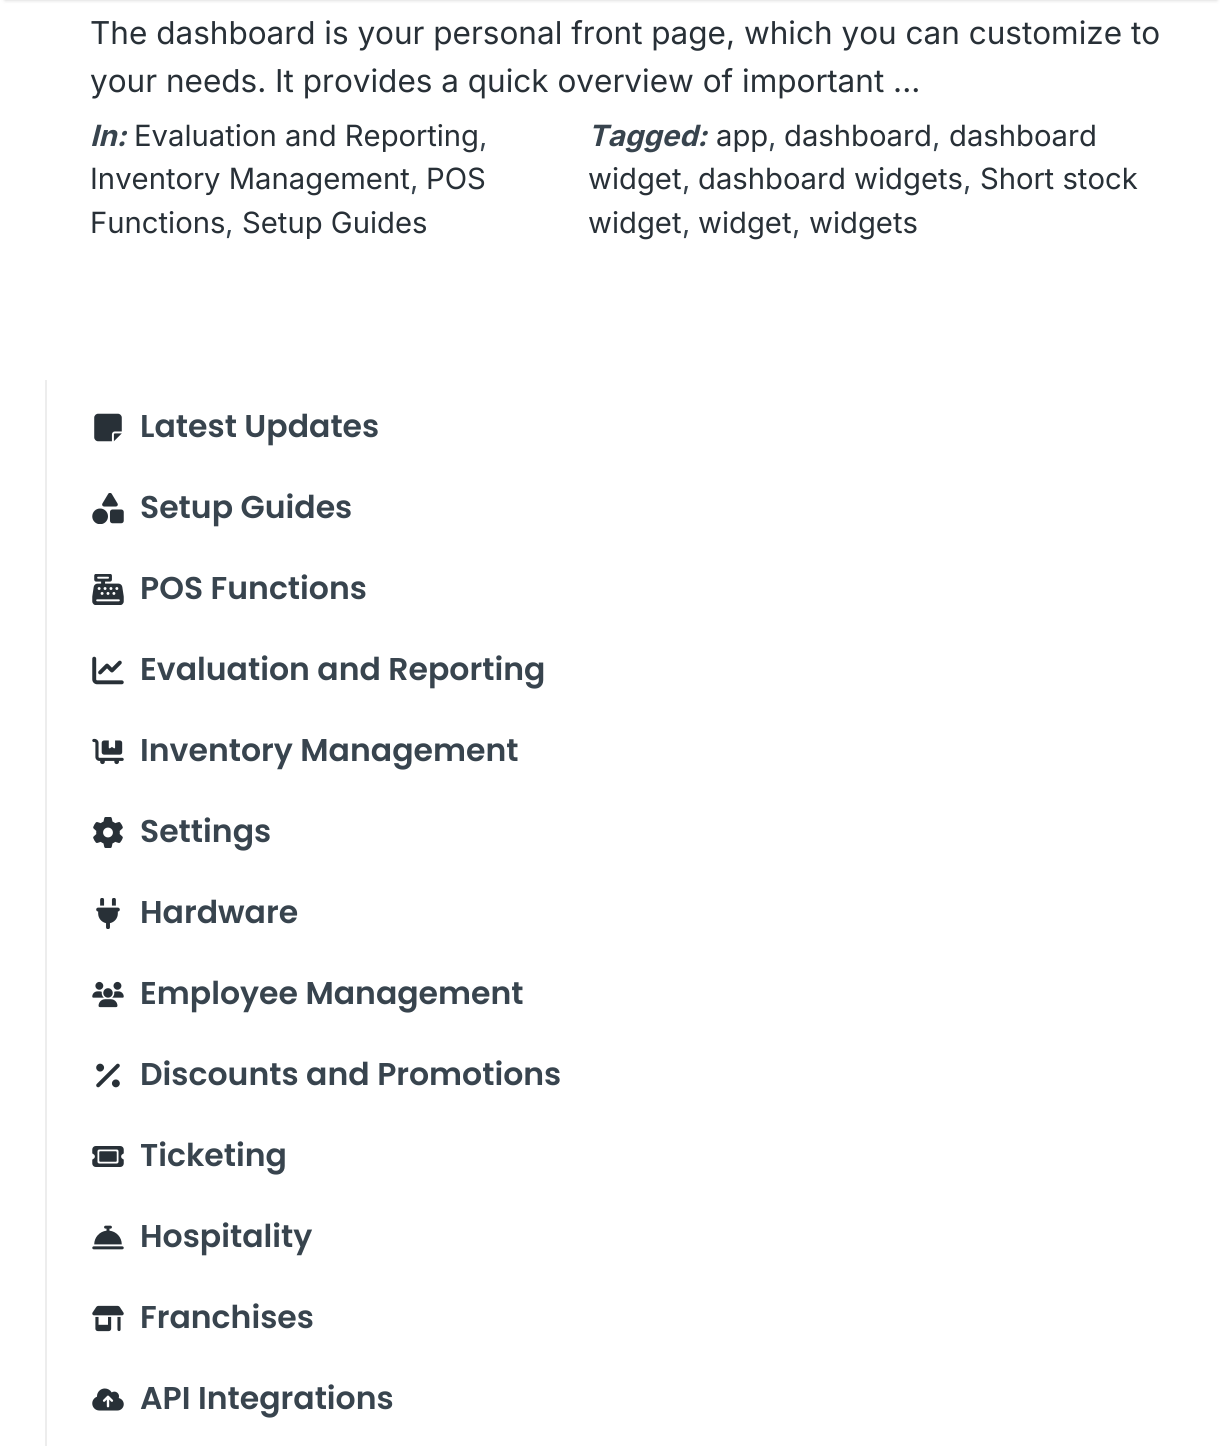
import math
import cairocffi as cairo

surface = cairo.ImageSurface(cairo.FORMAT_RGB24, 1220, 1446)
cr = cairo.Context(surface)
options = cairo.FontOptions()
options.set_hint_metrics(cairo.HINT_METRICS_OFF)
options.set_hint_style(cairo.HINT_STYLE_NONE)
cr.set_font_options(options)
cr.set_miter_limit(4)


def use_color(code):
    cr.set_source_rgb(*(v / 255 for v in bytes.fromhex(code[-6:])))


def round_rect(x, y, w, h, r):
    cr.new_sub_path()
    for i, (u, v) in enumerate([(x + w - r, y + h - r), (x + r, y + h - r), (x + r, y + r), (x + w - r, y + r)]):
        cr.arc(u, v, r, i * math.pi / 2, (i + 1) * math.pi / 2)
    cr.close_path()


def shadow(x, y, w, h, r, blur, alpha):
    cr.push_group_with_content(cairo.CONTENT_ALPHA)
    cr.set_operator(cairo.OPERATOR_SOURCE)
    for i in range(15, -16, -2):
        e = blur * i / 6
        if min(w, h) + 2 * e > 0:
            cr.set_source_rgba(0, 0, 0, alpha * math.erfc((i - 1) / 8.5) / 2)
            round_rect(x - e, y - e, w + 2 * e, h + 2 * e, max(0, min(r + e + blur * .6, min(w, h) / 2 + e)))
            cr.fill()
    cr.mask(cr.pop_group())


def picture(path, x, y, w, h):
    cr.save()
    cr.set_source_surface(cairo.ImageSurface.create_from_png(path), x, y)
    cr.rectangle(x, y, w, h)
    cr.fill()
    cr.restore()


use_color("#ffffff")
cr.paint()
use_color("#000000")
shadow(5, -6, 1212, 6, 0, 2, 0.2)
cr.select_font_face("Inter")
cr.set_font_size(31.5)
use_color("#283037")
cr.move_to(90, 44)
cr.show_text("The dashboard is your personal front page, which you can customize to")
cr.move_to(90, 92)
cr.show_text("your needs. It provides a quick overview of important ...")
cr.select_font_face("Inter", cairo.FONT_SLANT_ITALIC, cairo.FONT_WEIGHT_BOLD)
cr.set_font_size(29.25)
use_color("#38444e")
cr.move_to(90, 146)
cr.show_text("In:")
cr.select_font_face("Inter")
use_color("#283037")
cr.move_to(134, 146)
cr.show_text("Evaluation and Reporting")
use_color("#38444e")
cr.move_to(479, 146)
cr.show_text(",")
use_color("#283037")
cr.move_to(90, 189)
cr.show_text("Inventory Management")
use_color("#38444e")
cr.move_to(410, 189)
cr.show_text(",")
use_color("#283037")
cr.move_to(426, 189)
cr.show_text("POS")
cr.move_to(90, 233)
cr.show_text("Functions")
use_color("#38444e")
cr.move_to(225, 233)
cr.show_text(",")
use_color("#283037")
cr.move_to(242, 233)
cr.show_text("Setup Guides")
cr.select_font_face("Inter", cairo.FONT_SLANT_ITALIC, cairo.FONT_WEIGHT_BOLD)
use_color("#38444e")
cr.move_to(588, 146)
cr.show_text("Tagged:")
cr.select_font_face("Inter")
use_color("#283037")
cr.move_to(716, 146)
cr.show_text("app")
use_color("#38444e")
cr.move_to(768, 146)
cr.show_text(",")
use_color("#283037")
cr.move_to(784, 146)
cr.show_text("dashboard")
use_color("#38444e")
cr.move_to(932, 146)
cr.show_text(",")
use_color("#283037")
cr.move_to(949, 146)
cr.show_text("dashboard")
cr.move_to(588, 189)
cr.show_text("widget")
use_color("#38444e")
cr.move_to(682, 189)
cr.show_text(",")
use_color("#283037")
cr.move_to(698, 189)
cr.show_text("dashboard widgets")
use_color("#38444e")
cr.move_to(963, 189)
cr.show_text(",")
use_color("#283037")
cr.move_to(980, 189)
cr.show_text("Short stock")
cr.move_to(588, 233)
cr.show_text("widget")
use_color("#38444e")
cr.move_to(682, 233)
cr.show_text(",")
use_color("#283037")
cr.move_to(698, 233)
cr.show_text("widget")
use_color("#38444e")
cr.move_to(792, 233)
cr.show_text(",")
use_color("#283037")
cr.move_to(809, 233)
cr.show_text("widgets")
use_color("#ededed")
cr.rectangle(45, 380, 2, 1066)
cr.fill()
picture("img1.png", 94, 413, 28, 29)
cr.select_font_face("Poppins SemiBold")
cr.set_font_size(31.5)
use_color("#38444e")
cr.move_to(140, 437)
cr.show_text("Latest Updates")
picture("img2.png", 92, 493, 32, 31)
cr.move_to(140, 518)
cr.show_text("Setup Guides")
picture("img3.png", 92, 574, 32, 31)
cr.move_to(140, 599)
cr.show_text("POS Functions")
picture("img4.png", 92, 656, 32, 29)
cr.move_to(140, 680)
cr.show_text("Evaluation and Reporting")
picture("img5.png", 92, 738, 32, 27)
cr.move_to(140, 761)
cr.show_text("Inventory Management")
picture("img6.png", 93, 817, 30, 31)
cr.move_to(140, 842)
cr.show_text("Settings")
picture("img7.png", 96, 898, 24, 31)
cr.move_to(140, 923)
cr.show_text("Hardware")
picture("img8.png", 92, 981, 32, 27)
cr.move_to(140, 1004)
cr.show_text("Employee Management")
picture("img9.png", 96, 1063, 24, 25)
cr.move_to(140, 1085)
cr.show_text("Discounts and Promotions")
picture("img10.png", 92, 1146, 32, 21)
cr.move_to(140, 1166)
cr.show_text("Ticketing")
picture("img11.png", 92, 1225, 32, 25)
cr.move_to(140, 1247)
cr.show_text("Hospitality")
picture("img12.png", 92, 1305, 32, 27)
cr.move_to(140, 1328)
cr.show_text("Franchises")
picture("img13.png", 92, 1388, 32, 23)
cr.move_to(140, 1409)
cr.show_text("API Integrations")
surface.write_to_png("result.png")
